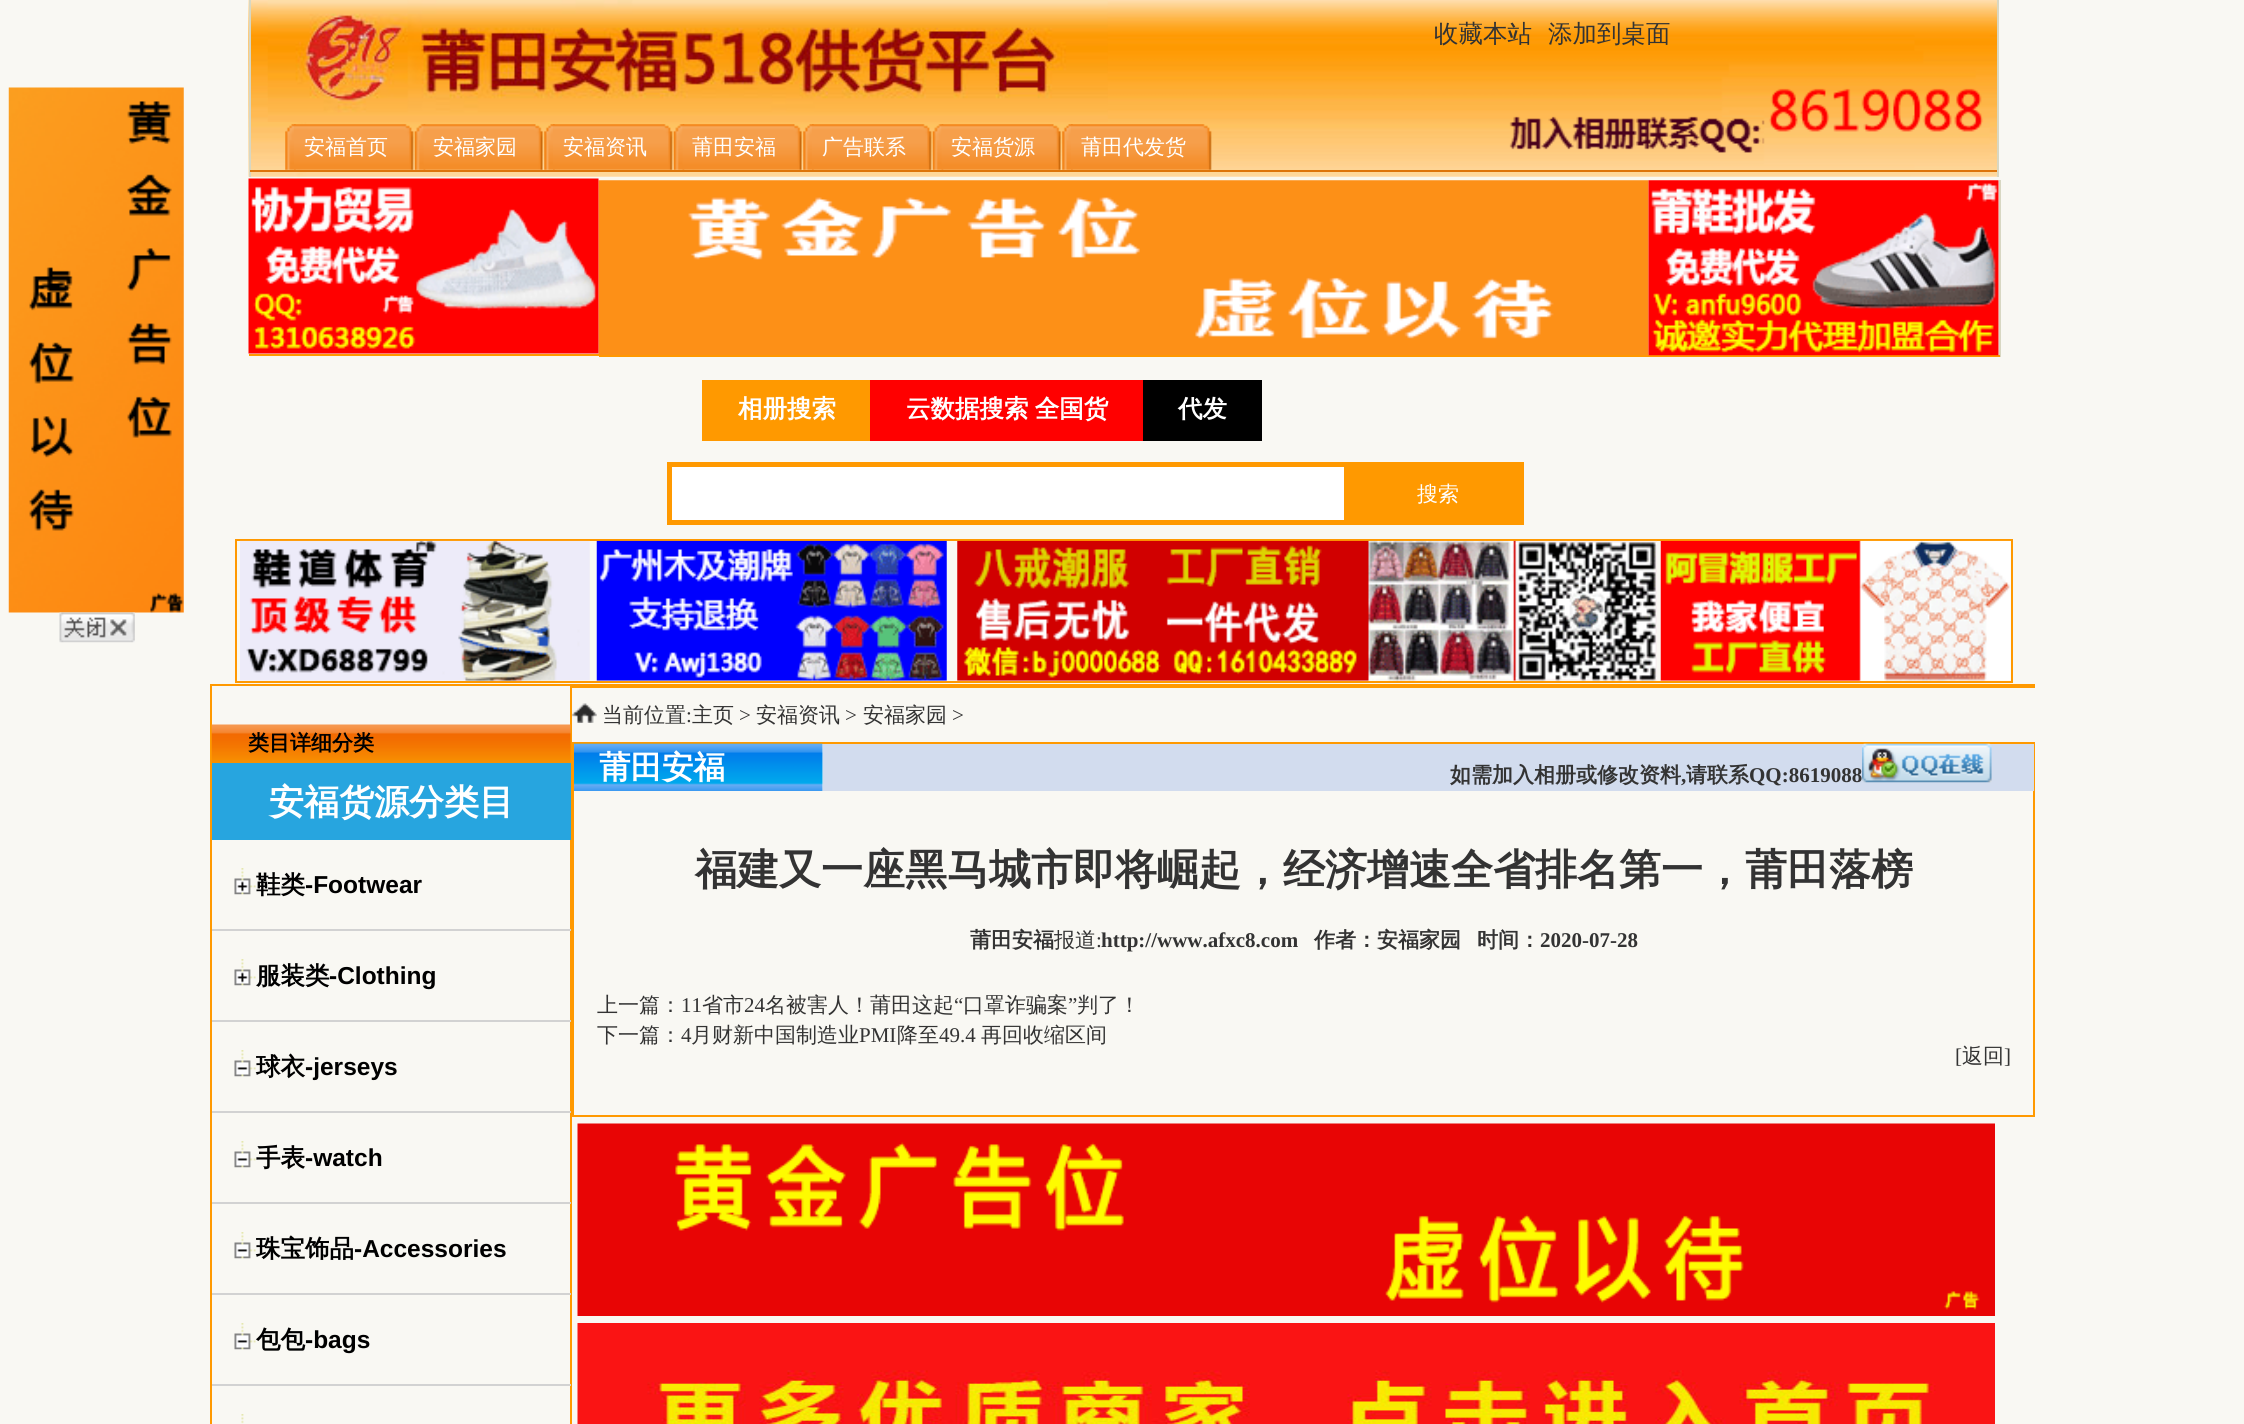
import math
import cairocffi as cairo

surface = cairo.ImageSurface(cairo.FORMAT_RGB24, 2244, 1424)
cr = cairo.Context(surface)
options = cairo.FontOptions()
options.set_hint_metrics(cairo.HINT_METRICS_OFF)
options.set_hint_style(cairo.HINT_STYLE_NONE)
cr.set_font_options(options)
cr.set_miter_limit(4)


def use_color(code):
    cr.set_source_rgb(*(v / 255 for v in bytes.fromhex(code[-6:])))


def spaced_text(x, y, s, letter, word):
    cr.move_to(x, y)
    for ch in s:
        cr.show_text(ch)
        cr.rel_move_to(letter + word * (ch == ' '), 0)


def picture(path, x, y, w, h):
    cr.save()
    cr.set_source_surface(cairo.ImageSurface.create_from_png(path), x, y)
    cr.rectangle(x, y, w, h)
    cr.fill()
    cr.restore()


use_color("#f9f8f3")
cr.paint()
picture("img1.png", 8, 87, 176, 526)
picture("img2.png", 59, 612, 76, 31)
picture("img3.png", 248, 0, 1749, 177)
use_color("#d8d7c2")
cr.rectangle(1997, 0, 2, 177)
cr.fill()
cr.rectangle(249, 0, 2, 177)
cr.fill()
picture("img4.png", 267, 0, 841, 122)
cr.select_font_face("WenQuanYi Zen Hei Medium")
cr.set_font_size(24.5)
use_color("#333333")
cr.move_to(1434, 42)
cr.show_text("收藏本站")
cr.move_to(1548, 42)
cr.show_text("添加到桌面")
use_color("#dd740b")
cr.rectangle(250, 170, 1747, 2)
cr.fill()
picture("img5.png", 285, 124, 11, 46)
picture("img6.png", 294, 124, 120, 46)
cr.set_font_size(21)
use_color("#ffffff")
cr.move_to(304, 154)
cr.show_text("安福首页")
picture("img7.png", 414, 124, 12, 46)
picture("img8.png", 423, 124, 120, 46)
cr.move_to(433, 154)
cr.show_text("安福家园")
picture("img9.png", 544, 124, 11, 46)
picture("img10.png", 553, 124, 120, 46)
cr.move_to(563, 154)
cr.show_text("安福资讯")
picture("img7.png", 673, 124, 12, 46)
picture("img8.png", 682, 124, 120, 46)
cr.move_to(692, 154)
cr.show_text("莆田安福")
picture("img9.png", 803, 124, 11, 46)
picture("img10.png", 812, 124, 120, 46)
cr.move_to(822, 154)
cr.show_text("广告联系")
picture("img7.png", 932, 124, 12, 46)
picture("img8.png", 941, 124, 120, 46)
cr.move_to(951, 154)
cr.show_text("安福货源")
picture("img11.png", 1062, 124, 11, 46)
picture("img12.png", 1071, 124, 141, 46)
cr.move_to(1081, 154)
cr.show_text("莆田代发货")
use_color("#ff9900")
cr.rectangle(599, 355, 1051, 2)
cr.fill()
picture("img14.png", 598, 180, 1051, 176)
picture("img13.png", 248, 178, 351, 176)
cr.rectangle(249, 354, 350, 2)
cr.fill()
use_color("#d8d7c2")
cr.rectangle(1999, 180, 2, 177)
cr.fill()
use_color("#ff9900")
cr.rectangle(1649, 355, 351, 2)
cr.fill()
picture("img15.png", 1648, 180, 351, 176)
cr.rectangle(702, 380, 168, 61)
cr.fill()
cr.select_font_face("WenQuanYi Zen Hei", cairo.FONT_SLANT_NORMAL, cairo.FONT_WEIGHT_BOLD)
cr.set_font_size(24.5)
use_color("#ffffff")
cr.move_to(738, 417)
cr.show_text("相册搜索")
use_color("#ff0000")
cr.rectangle(870, 380, 273, 61)
cr.fill()
use_color("#ffffff")
spaced_text(906, 417, "云数据搜索 全国货", 0, -1)
use_color("#000000")
cr.rectangle(1143, 380, 119, 61)
cr.fill()
use_color("#ffffff")
cr.move_to(1178, 417)
cr.show_text("代发")
cr.rectangle(669.5, 464.5, 677, 58)
cr.fill_preserve()
use_color("#ff9900")
cr.set_line_width(5)
cr.stroke()
cr.rectangle(1349, 462, 175, 63)
cr.fill()
cr.select_font_face("WenQuanYi Zen Hei Medium")
cr.set_font_size(21)
use_color("#ffffff")
cr.move_to(1417, 501)
cr.show_text("搜索")
cr.rectangle(236, 540, 1776, 142)
use_color("#ff9900")
cr.set_line_width(2)
cr.stroke()
picture("img16.png", 240, 540, 350, 141)
picture("img17.png", 596, 540, 351, 141)
picture("img18.png", 957, 540, 700, 141)
picture("img19.png", 1660, 540, 351, 141)
cr.rectangle(211, 685, 360, 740)
cr.stroke()
picture("img20.png", 211, 724, 360, 39)
cr.select_font_face("WenQuanYi Zen Hei", cairo.FONT_SLANT_NORMAL, cairo.FONT_WEIGHT_BOLD)
use_color("#000000")
cr.move_to(248, 750)
cr.show_text("类目详细分类")
use_color("#27a5df")
cr.rectangle(212, 763, 359, 77)
cr.fill()
cr.set_font_size(35)
use_color("#ffffff")
cr.move_to(269, 814)
cr.show_text("安福货源分类目")
use_color("#d2d2d2")
cr.rectangle(212, 929, 359, 2)
cr.fill()
picture("img21.png", 234, 868, 22, 27)
cr.set_font_size(24.5)
use_color("#000000")
cr.move_to(256, 893)
cr.show_text("鞋类")
cr.select_font_face("Liberation Sans", cairo.FONT_SLANT_NORMAL, cairo.FONT_WEIGHT_BOLD)
cr.move_to(305, 893)
cr.show_text("-Footwear")
use_color("#d2d2d2")
cr.rectangle(212, 1020, 359, 2)
cr.fill()
picture("img21.png", 234, 959, 22, 27)
cr.select_font_face("WenQuanYi Zen Hei", cairo.FONT_SLANT_NORMAL, cairo.FONT_WEIGHT_BOLD)
use_color("#000000")
cr.move_to(256, 984)
cr.show_text("服装类")
cr.select_font_face("Liberation Sans", cairo.FONT_SLANT_NORMAL, cairo.FONT_WEIGHT_BOLD)
cr.move_to(329, 984)
cr.show_text("-Clothing")
use_color("#d2d2d2")
cr.rectangle(212, 1111, 359, 2)
cr.fill()
picture("img22.png", 234, 1050, 22, 27)
cr.select_font_face("WenQuanYi Zen Hei", cairo.FONT_SLANT_NORMAL, cairo.FONT_WEIGHT_BOLD)
use_color("#000000")
cr.move_to(256, 1075)
cr.show_text("球衣")
cr.select_font_face("Liberation Sans", cairo.FONT_SLANT_NORMAL, cairo.FONT_WEIGHT_BOLD)
cr.move_to(305, 1075)
cr.show_text("-jerseys")
use_color("#d2d2d2")
cr.rectangle(212, 1202, 359, 2)
cr.fill()
picture("img22.png", 234, 1141, 22, 27)
cr.select_font_face("WenQuanYi Zen Hei", cairo.FONT_SLANT_NORMAL, cairo.FONT_WEIGHT_BOLD)
use_color("#000000")
cr.move_to(256, 1166)
cr.show_text("手表")
cr.select_font_face("Liberation Sans", cairo.FONT_SLANT_NORMAL, cairo.FONT_WEIGHT_BOLD)
cr.move_to(305, 1166)
cr.show_text("-watch")
use_color("#d2d2d2")
cr.rectangle(212, 1293, 359, 2)
cr.fill()
picture("img22.png", 234, 1232, 22, 27)
cr.select_font_face("WenQuanYi Zen Hei", cairo.FONT_SLANT_NORMAL, cairo.FONT_WEIGHT_BOLD)
use_color("#000000")
cr.move_to(256, 1257)
cr.show_text("珠宝饰品")
cr.select_font_face("Liberation Sans", cairo.FONT_SLANT_NORMAL, cairo.FONT_WEIGHT_BOLD)
cr.move_to(354, 1257)
cr.show_text("-Accessories")
use_color("#d2d2d2")
cr.rectangle(212, 1384, 359, 2)
cr.fill()
picture("img22.png", 234, 1323, 22, 27)
cr.select_font_face("WenQuanYi Zen Hei", cairo.FONT_SLANT_NORMAL, cairo.FONT_WEIGHT_BOLD)
use_color("#000000")
cr.move_to(256, 1348)
cr.show_text("包包")
cr.select_font_face("Liberation Sans", cairo.FONT_SLANT_NORMAL, cairo.FONT_WEIGHT_BOLD)
cr.move_to(305, 1348)
cr.show_text("-bags")
picture("img23.png", 241, 1414, 3, 10)
use_color("#ff9900")
cr.rectangle(572, 684, 1463, 4)
cr.fill()
picture("img24.png", 572, 703, 25, 20)
cr.select_font_face("WenQuanYi Zen Hei Medium")
cr.set_font_size(21)
use_color("#333333")
cr.move_to(602, 722)
cr.show_text("当前位置")
cr.select_font_face("Liberation Serif")
cr.move_to(686, 722)
cr.show_text(":")
cr.select_font_face("WenQuanYi Zen Hei Medium")
cr.move_to(692, 722)
cr.show_text("主页")
cr.select_font_face("Liberation Serif")
cr.move_to(739, 722)
cr.show_text(">")
cr.select_font_face("WenQuanYi Zen Hei Medium")
cr.move_to(756, 722)
cr.show_text("安福资讯")
cr.select_font_face("Liberation Serif")
cr.move_to(845, 722)
cr.show_text(">")
cr.select_font_face("WenQuanYi Zen Hei Medium")
cr.move_to(863, 722)
cr.show_text("安福家园")
cr.select_font_face("Liberation Serif")
cr.move_to(952, 722)
cr.show_text(">")
cr.rectangle(573, 743, 1461, 373)
use_color("#ff9900")
cr.stroke()
picture("img25.png", 574, 743, 249, 48)
cr.select_font_face("WenQuanYi Zen Hei", cairo.FONT_SLANT_NORMAL, cairo.FONT_WEIGHT_BOLD)
cr.set_font_size(31.5)
use_color("#ffffff")
cr.move_to(599, 778)
cr.show_text("莆田安福")
use_color("#d2dcee")
cr.rectangle(823, 744, 1211, 47)
cr.fill()
cr.set_font_size(21)
use_color("#333333")
cr.move_to(1450, 782)
cr.show_text("如需加入相册或修改资料")
cr.select_font_face("Liberation Serif", cairo.FONT_SLANT_NORMAL, cairo.FONT_WEIGHT_BOLD)
cr.move_to(1681, 782)
cr.show_text(",")
cr.select_font_face("WenQuanYi Zen Hei", cairo.FONT_SLANT_NORMAL, cairo.FONT_WEIGHT_BOLD)
cr.move_to(1686, 782)
cr.show_text("请联系")
cr.select_font_face("Liberation Serif", cairo.FONT_SLANT_NORMAL, cairo.FONT_WEIGHT_BOLD)
cr.move_to(1749, 782)
cr.show_text("QQ:8619088")
picture("img26.png", 1862, 743, 130, 40)
cr.select_font_face("WenQuanYi Zen Hei", cairo.FONT_SLANT_NORMAL, cairo.FONT_WEIGHT_BOLD)
cr.set_font_size(42)
cr.move_to(695, 884)
cr.show_text("福建又一座黑马城市即将崛起，经济增速全省排名第一，莆田落榜")
cr.set_font_size(21)
cr.move_to(970, 947)
cr.show_text("莆田安福")
cr.select_font_face("WenQuanYi Zen Hei Medium")
cr.move_to(1054, 947)
cr.show_text("报道")
cr.select_font_face("Liberation Serif")
cr.move_to(1096, 947)
cr.show_text(":")
cr.select_font_face("Liberation Serif", cairo.FONT_SLANT_NORMAL, cairo.FONT_WEIGHT_BOLD)
cr.move_to(1101, 947)
cr.show_text("http://www.afxc8.com")
cr.select_font_face("WenQuanYi Zen Hei", cairo.FONT_SLANT_NORMAL, cairo.FONT_WEIGHT_BOLD)
cr.move_to(1314, 947)
cr.show_text("作者：安福家园")
cr.move_to(1477, 947)
cr.show_text("时间：")
cr.select_font_face("Liberation Serif", cairo.FONT_SLANT_NORMAL, cairo.FONT_WEIGHT_BOLD)
cr.move_to(1540, 947)
cr.show_text("2020-07-28")
cr.select_font_face("WenQuanYi Zen Hei Medium")
cr.move_to(597, 1012)
cr.show_text("上一篇：")
cr.select_font_face("Liberation Serif")
cr.move_to(681, 1012)
cr.show_text("11")
cr.select_font_face("WenQuanYi Zen Hei Medium")
cr.move_to(702, 1012)
cr.show_text("省市")
cr.select_font_face("Liberation Serif")
cr.move_to(744, 1012)
cr.show_text("24")
cr.select_font_face("WenQuanYi Zen Hei Medium")
cr.move_to(765, 1012)
cr.show_text("名被害人！莆田这起")
cr.select_font_face("Liberation Serif")
cr.move_to(954, 1012)
cr.show_text("“")
cr.select_font_face("WenQuanYi Zen Hei Medium")
cr.move_to(963, 1012)
cr.show_text("口罩诈骗案")
cr.select_font_face("Liberation Serif")
cr.move_to(1068, 1012)
cr.show_text("”")
cr.select_font_face("WenQuanYi Zen Hei Medium")
cr.move_to(1077, 1012)
cr.show_text("判了！")
cr.move_to(597, 1042)
cr.show_text("下一篇：")
cr.select_font_face("Liberation Serif")
cr.move_to(681, 1042)
cr.show_text("4")
cr.select_font_face("WenQuanYi Zen Hei Medium")
cr.move_to(691, 1042)
cr.show_text("月财新中国制造业")
cr.select_font_face("Liberation Serif")
cr.move_to(859, 1042)
cr.show_text("PMI")
cr.select_font_face("WenQuanYi Zen Hei Medium")
cr.move_to(897, 1042)
cr.show_text("降至")
cr.select_font_face("Liberation Serif")
cr.move_to(939, 1042)
cr.show_text("49.4")
cr.select_font_face("WenQuanYi Zen Hei Medium")
cr.move_to(981, 1042)
cr.show_text("再回收缩区间")
cr.select_font_face("Liberation Serif")
cr.move_to(1955, 1063)
cr.show_text("[")
cr.select_font_face("WenQuanYi Zen Hei Medium")
cr.move_to(1962, 1063)
cr.show_text("返回")
cr.select_font_face("Liberation Serif")
cr.move_to(2004, 1063)
cr.show_text("]")
picture("img27.png", 577, 1123, 1418, 193)
picture("img28.png", 577, 1323, 1418, 101)
surface.write_to_png("result.png")
